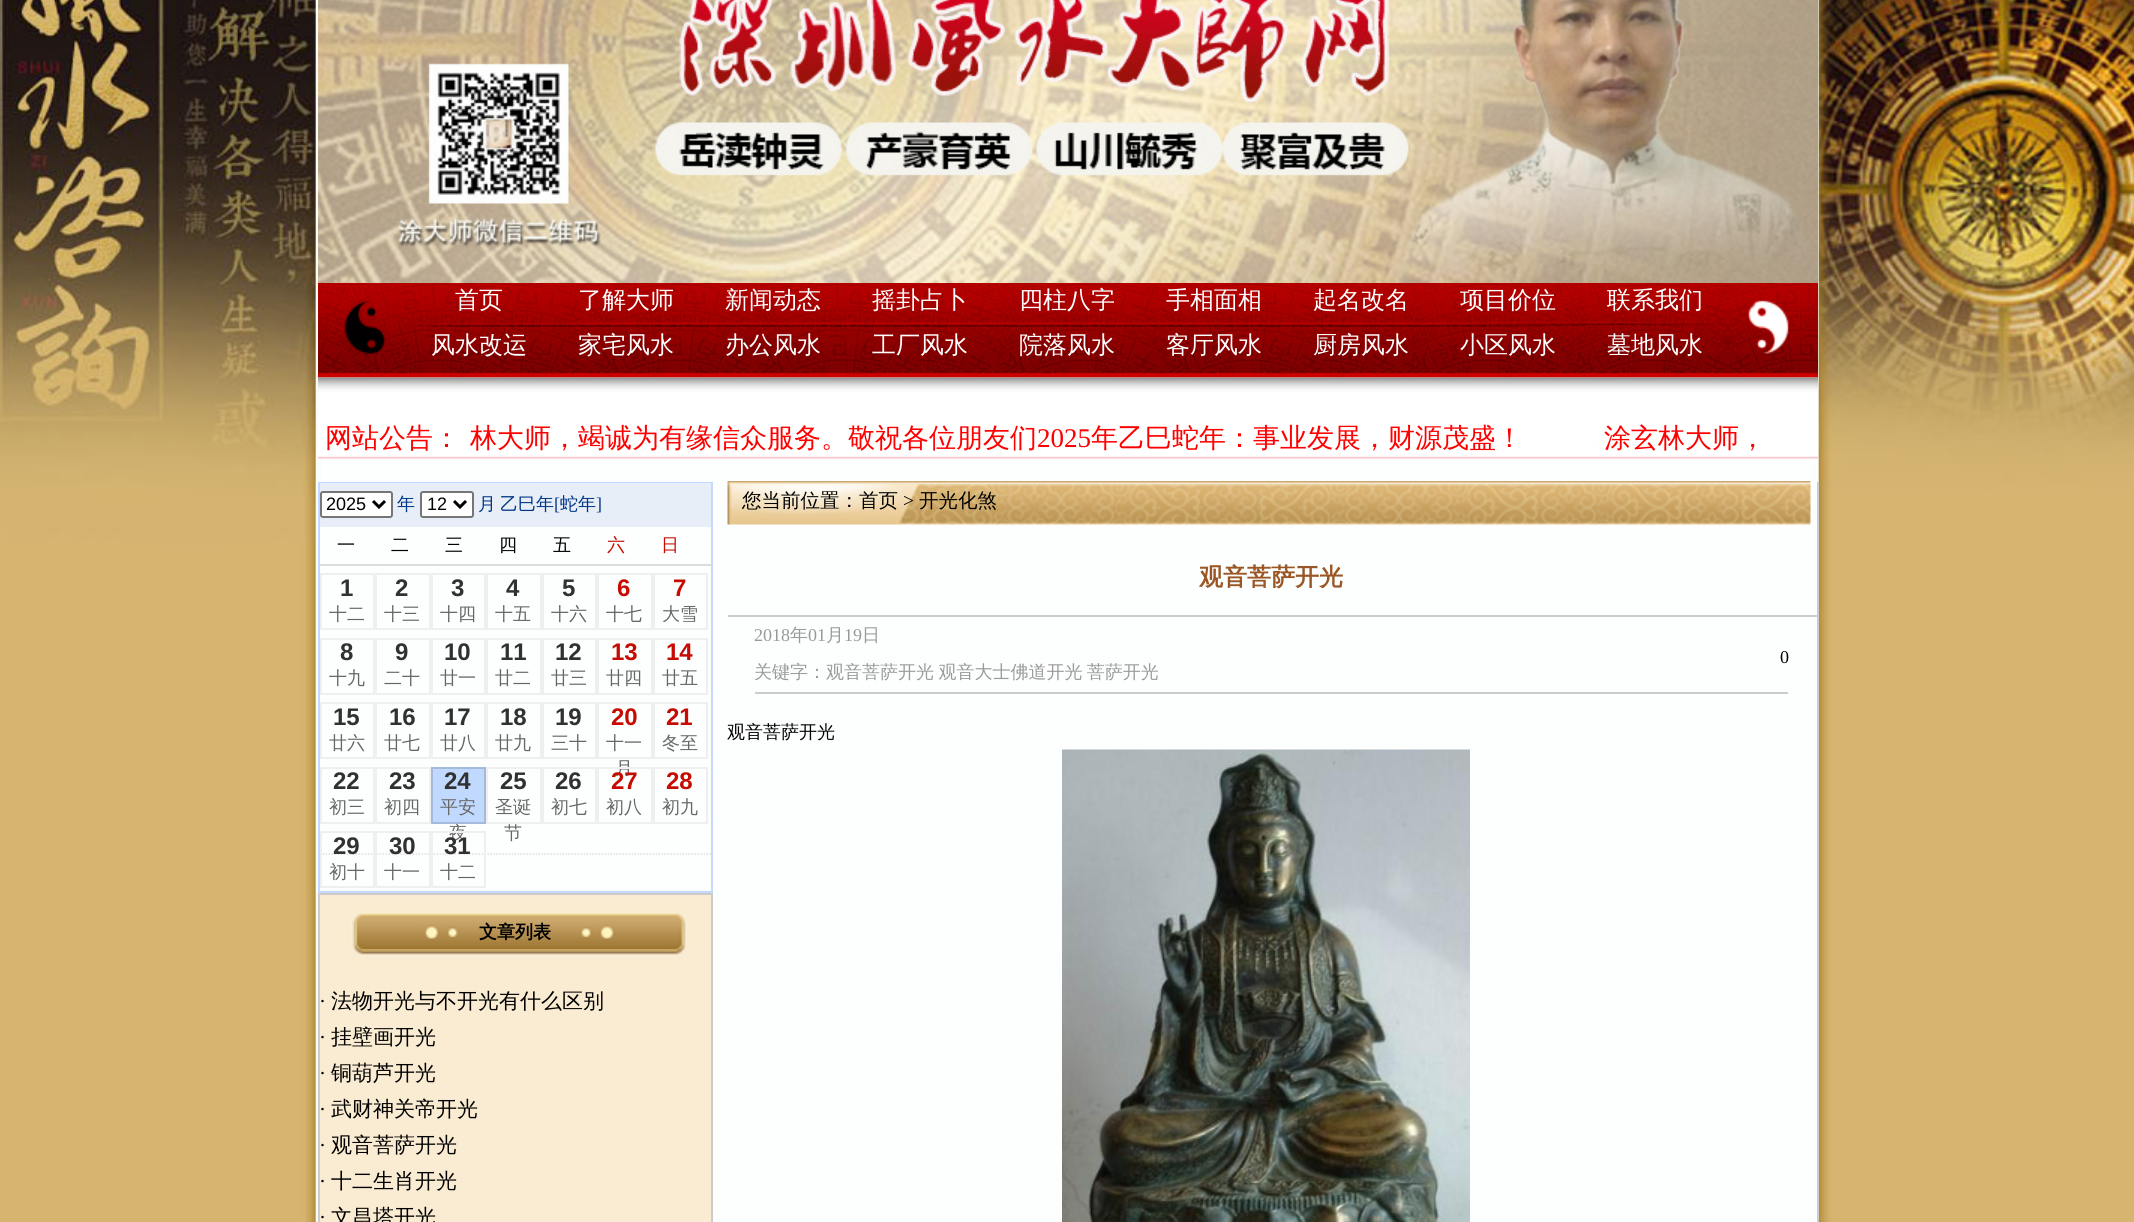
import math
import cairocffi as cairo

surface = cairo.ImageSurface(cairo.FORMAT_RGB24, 2134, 1222)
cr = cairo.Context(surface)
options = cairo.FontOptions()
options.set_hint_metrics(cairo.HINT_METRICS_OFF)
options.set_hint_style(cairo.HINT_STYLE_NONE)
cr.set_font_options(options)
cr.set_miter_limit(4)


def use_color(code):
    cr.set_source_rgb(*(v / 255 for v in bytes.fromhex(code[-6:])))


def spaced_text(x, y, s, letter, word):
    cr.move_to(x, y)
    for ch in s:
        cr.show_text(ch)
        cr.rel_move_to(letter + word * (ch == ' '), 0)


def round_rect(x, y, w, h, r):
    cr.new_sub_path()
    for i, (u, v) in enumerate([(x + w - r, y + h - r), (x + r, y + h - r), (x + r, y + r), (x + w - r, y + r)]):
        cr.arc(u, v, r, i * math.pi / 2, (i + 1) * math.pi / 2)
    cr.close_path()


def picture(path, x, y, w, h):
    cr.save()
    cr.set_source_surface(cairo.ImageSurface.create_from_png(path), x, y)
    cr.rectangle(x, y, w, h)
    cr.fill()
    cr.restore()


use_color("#ffffff")
cr.paint()
picture("img1.png", 0, 0, 2134, 1222)
picture("img2.png", 318, 0, 1500, 283)
picture("img3.png", 318, 283, 1500, 95)
cr.select_font_face("WenQuanYi Zen Hei Medium")
cr.set_font_size(24)
use_color("#ffffff")
cr.move_to(455, 308)
cr.show_text("首页")
cr.move_to(578, 308)
cr.show_text("了解大师")
cr.move_to(725, 308)
cr.show_text("新闻动态")
cr.move_to(872, 308)
cr.show_text("摇卦占卜")
cr.move_to(1019, 308)
cr.show_text("四柱八字")
cr.move_to(1166, 308)
cr.show_text("手相面相")
cr.move_to(1313, 308)
cr.show_text("起名改名")
cr.move_to(1460, 308)
cr.show_text("项目价位")
cr.move_to(1607, 308)
cr.show_text("联系我们")
cr.move_to(431, 353)
cr.show_text("风水改运")
cr.move_to(578, 353)
cr.show_text("家宅风水")
cr.move_to(725, 353)
cr.show_text("办公风水")
cr.move_to(872, 353)
cr.show_text("工厂风水")
cr.move_to(1019, 353)
cr.show_text("院落风水")
cr.move_to(1166, 353)
cr.show_text("客厅风水")
cr.move_to(1313, 353)
cr.show_text("厨房风水")
cr.move_to(1460, 353)
cr.show_text("小区风水")
cr.move_to(1607, 353)
cr.show_text("墓地风水")
picture("img4.png", 318, 377, 1500, 82)
cr.set_font_size(27)
use_color("#ff0000")
cr.move_to(325, 447)
cr.show_text("网站公告：")
cr.move_to(470, 447)
cr.show_text("林大师，竭诚为有缘信众服务。敬祝各位朋友们")
cr.select_font_face("Liberation Serif")
cr.move_to(1037, 447)
cr.show_text("2025")
cr.select_font_face("WenQuanYi Zen Hei Medium")
cr.move_to(1091, 447)
cr.show_text("年乙巳蛇年：事业发展，财源茂盛！")
cr.move_to(1604, 447)
cr.show_text("涂玄林大师，")
cr.rectangle(319, 483, 393, 409)
use_color("#c3d9ff")
cr.stroke()
use_color("#e7eef8")
cr.rectangle(320, 483, 391, 44)
cr.fill()
use_color("#ffffff")
round_rect(321, 492, 71, 25, 2)
cr.fill_preserve()
use_color("#767676")
cr.stroke()
cr.new_path()
cr.move_to(373, 501)
cr.line_to(379, 507)
cr.line_to(385, 501)
use_color("#000000")
cr.set_line_width(3)
cr.stroke()
cr.select_font_face("Liberation Sans")
cr.set_font_size(18)
cr.move_to(326, 510)
cr.show_text("2025")
cr.select_font_face("WenQuanYi Zen Hei Medium")
use_color("#003784")
cr.move_to(397, 510)
cr.show_text("年")
use_color("#ffffff")
round_rect(421, 492, 52, 25, 2)
cr.fill_preserve()
use_color("#767676")
cr.set_line_width(2)
cr.stroke()
cr.new_path()
cr.move_to(454, 501)
cr.line_to(460, 507)
cr.line_to(466, 501)
use_color("#000000")
cr.set_line_width(3)
cr.stroke()
cr.select_font_face("Liberation Sans")
cr.move_to(427, 510)
cr.show_text("12")
cr.select_font_face("WenQuanYi Zen Hei Medium")
use_color("#003784")
cr.move_to(478, 510)
cr.show_text("月")
cr.move_to(500, 510)
cr.show_text("乙巳年")
cr.select_font_face("Liberation Serif")
cr.move_to(554, 510)
cr.show_text("[")
cr.select_font_face("WenQuanYi Zen Hei Medium")
cr.move_to(560, 510)
cr.show_text("蛇年")
cr.select_font_face("Liberation Serif")
cr.move_to(596, 510)
cr.show_text("]")
cr.select_font_face("WenQuanYi Zen Hei Medium")
use_color("#000000")
cr.move_to(337, 551)
cr.show_text("一")
cr.move_to(391, 551)
cr.show_text("二")
cr.move_to(445, 551)
cr.show_text("三")
cr.move_to(499, 551)
cr.show_text("四")
cr.move_to(553, 551)
cr.show_text("五")
use_color("#c60b02")
cr.move_to(607, 551)
cr.show_text("六")
cr.move_to(661, 551)
cr.show_text("日")
use_color("#dddddd")
cr.rectangle(320, 564, 391, 2)
cr.fill()
cr.new_path()
cr.move_to(319.5, 854)
cr.line_to(711, 854)
cr.set_line_width(1.5)
cr.set_dash([1.5, 1.5])
cr.stroke()
cr.rectangle(321, 574, 53, 55)
use_color("#efefef")
cr.set_line_width(2)
cr.set_dash([])
cr.stroke()
cr.select_font_face("Liberation Sans", cairo.FONT_SLANT_NORMAL, cairo.FONT_WEIGHT_BOLD)
cr.set_font_size(24)
use_color("#313131")
cr.move_to(340, 596)
cr.show_text("1")
cr.select_font_face("WenQuanYi Zen Hei Medium")
cr.set_font_size(18)
use_color("#666666")
cr.move_to(329, 620)
cr.show_text("十二")
cr.rectangle(376, 574, 54, 55)
use_color("#efefef")
cr.stroke()
cr.select_font_face("Liberation Sans", cairo.FONT_SLANT_NORMAL, cairo.FONT_WEIGHT_BOLD)
cr.set_font_size(24)
use_color("#313131")
cr.move_to(395, 596)
cr.show_text("2")
cr.select_font_face("WenQuanYi Zen Hei Medium")
cr.set_font_size(18)
use_color("#666666")
cr.move_to(384, 620)
cr.show_text("十三")
cr.rectangle(432, 574, 53, 55)
use_color("#efefef")
cr.stroke()
cr.select_font_face("Liberation Sans", cairo.FONT_SLANT_NORMAL, cairo.FONT_WEIGHT_BOLD)
cr.set_font_size(24)
use_color("#313131")
cr.move_to(451, 596)
cr.show_text("3")
cr.select_font_face("WenQuanYi Zen Hei Medium")
cr.set_font_size(18)
use_color("#666666")
cr.move_to(440, 620)
cr.show_text("十四")
cr.rectangle(487, 574, 54, 55)
use_color("#efefef")
cr.stroke()
cr.select_font_face("Liberation Sans", cairo.FONT_SLANT_NORMAL, cairo.FONT_WEIGHT_BOLD)
cr.set_font_size(24)
use_color("#313131")
cr.move_to(506, 596)
cr.show_text("4")
cr.select_font_face("WenQuanYi Zen Hei Medium")
cr.set_font_size(18)
use_color("#666666")
cr.move_to(495, 620)
cr.show_text("十五")
cr.rectangle(543, 574, 53, 55)
use_color("#efefef")
cr.stroke()
cr.select_font_face("Liberation Sans", cairo.FONT_SLANT_NORMAL, cairo.FONT_WEIGHT_BOLD)
cr.set_font_size(24)
use_color("#313131")
cr.move_to(562, 596)
cr.show_text("5")
cr.select_font_face("WenQuanYi Zen Hei Medium")
cr.set_font_size(18)
use_color("#666666")
cr.move_to(551, 620)
cr.show_text("十六")
cr.rectangle(598, 574, 54, 55)
use_color("#efefef")
cr.stroke()
cr.select_font_face("Liberation Sans", cairo.FONT_SLANT_NORMAL, cairo.FONT_WEIGHT_BOLD)
cr.set_font_size(24)
use_color("#c60b02")
cr.move_to(617, 596)
cr.show_text("6")
cr.select_font_face("WenQuanYi Zen Hei Medium")
cr.set_font_size(18)
use_color("#666666")
cr.move_to(606, 620)
cr.show_text("十七")
cr.rectangle(654, 574, 53, 55)
use_color("#efefef")
cr.stroke()
cr.select_font_face("Liberation Sans", cairo.FONT_SLANT_NORMAL, cairo.FONT_WEIGHT_BOLD)
cr.set_font_size(24)
use_color("#c60b02")
cr.move_to(673, 596)
cr.show_text("7")
cr.select_font_face("WenQuanYi Zen Hei Medium")
cr.set_font_size(18)
use_color("#666666")
cr.move_to(662, 620)
cr.show_text("大雪")
cr.rectangle(321, 639, 53, 55)
use_color("#efefef")
cr.stroke()
cr.select_font_face("Liberation Sans", cairo.FONT_SLANT_NORMAL, cairo.FONT_WEIGHT_BOLD)
cr.set_font_size(24)
use_color("#313131")
cr.move_to(340, 660)
cr.show_text("8")
cr.select_font_face("WenQuanYi Zen Hei Medium")
cr.set_font_size(18)
use_color("#666666")
cr.move_to(329, 684)
cr.show_text("十九")
cr.rectangle(376, 639, 54, 55)
use_color("#efefef")
cr.stroke()
cr.select_font_face("Liberation Sans", cairo.FONT_SLANT_NORMAL, cairo.FONT_WEIGHT_BOLD)
cr.set_font_size(24)
use_color("#313131")
cr.move_to(395, 660)
cr.show_text("9")
cr.select_font_face("WenQuanYi Zen Hei Medium")
cr.set_font_size(18)
use_color("#666666")
cr.move_to(384, 684)
cr.show_text("二十")
cr.rectangle(432, 639, 53, 55)
use_color("#efefef")
cr.stroke()
cr.select_font_face("Liberation Sans", cairo.FONT_SLANT_NORMAL, cairo.FONT_WEIGHT_BOLD)
cr.set_font_size(24)
use_color("#313131")
cr.move_to(444, 660)
cr.show_text("10")
cr.select_font_face("WenQuanYi Zen Hei Medium")
cr.set_font_size(18)
use_color("#666666")
cr.move_to(440, 684)
cr.show_text("廿一")
cr.rectangle(487, 639, 54, 55)
use_color("#efefef")
cr.stroke()
cr.select_font_face("Liberation Sans", cairo.FONT_SLANT_NORMAL, cairo.FONT_WEIGHT_BOLD)
cr.set_font_size(24)
use_color("#313131")
cr.move_to(500, 660)
cr.show_text("11")
cr.select_font_face("WenQuanYi Zen Hei Medium")
cr.set_font_size(18)
use_color("#666666")
cr.move_to(495, 684)
cr.show_text("廿二")
cr.rectangle(543, 639, 53, 55)
use_color("#efefef")
cr.stroke()
cr.select_font_face("Liberation Sans", cairo.FONT_SLANT_NORMAL, cairo.FONT_WEIGHT_BOLD)
cr.set_font_size(24)
use_color("#313131")
cr.move_to(555, 660)
cr.show_text("12")
cr.select_font_face("WenQuanYi Zen Hei Medium")
cr.set_font_size(18)
use_color("#666666")
cr.move_to(551, 684)
cr.show_text("廿三")
cr.rectangle(598, 639, 54, 55)
use_color("#efefef")
cr.stroke()
cr.select_font_face("Liberation Sans", cairo.FONT_SLANT_NORMAL, cairo.FONT_WEIGHT_BOLD)
cr.set_font_size(24)
use_color("#c60b02")
cr.move_to(611, 660)
cr.show_text("13")
cr.select_font_face("WenQuanYi Zen Hei Medium")
cr.set_font_size(18)
use_color("#666666")
cr.move_to(606, 684)
cr.show_text("廿四")
cr.rectangle(654, 639, 53, 55)
use_color("#efefef")
cr.stroke()
cr.select_font_face("Liberation Sans", cairo.FONT_SLANT_NORMAL, cairo.FONT_WEIGHT_BOLD)
cr.set_font_size(24)
use_color("#c60b02")
cr.move_to(666, 660)
cr.show_text("14")
cr.select_font_face("WenQuanYi Zen Hei Medium")
cr.set_font_size(18)
use_color("#666666")
cr.move_to(662, 684)
cr.show_text("廿五")
cr.rectangle(321, 703, 53, 55)
use_color("#efefef")
cr.stroke()
cr.select_font_face("Liberation Sans", cairo.FONT_SLANT_NORMAL, cairo.FONT_WEIGHT_BOLD)
cr.set_font_size(24)
use_color("#313131")
cr.move_to(333, 725)
cr.show_text("15")
cr.select_font_face("WenQuanYi Zen Hei Medium")
cr.set_font_size(18)
use_color("#666666")
cr.move_to(329, 749)
cr.show_text("廿六")
cr.rectangle(376, 703, 54, 55)
use_color("#efefef")
cr.stroke()
cr.select_font_face("Liberation Sans", cairo.FONT_SLANT_NORMAL, cairo.FONT_WEIGHT_BOLD)
cr.set_font_size(24)
use_color("#313131")
cr.move_to(389, 725)
cr.show_text("16")
cr.select_font_face("WenQuanYi Zen Hei Medium")
cr.set_font_size(18)
use_color("#666666")
cr.move_to(384, 749)
cr.show_text("廿七")
cr.rectangle(432, 703, 53, 55)
use_color("#efefef")
cr.stroke()
cr.select_font_face("Liberation Sans", cairo.FONT_SLANT_NORMAL, cairo.FONT_WEIGHT_BOLD)
cr.set_font_size(24)
use_color("#313131")
cr.move_to(444, 725)
cr.show_text("17")
cr.select_font_face("WenQuanYi Zen Hei Medium")
cr.set_font_size(18)
use_color("#666666")
cr.move_to(440, 749)
cr.show_text("廿八")
cr.rectangle(487, 703, 54, 55)
use_color("#efefef")
cr.stroke()
cr.select_font_face("Liberation Sans", cairo.FONT_SLANT_NORMAL, cairo.FONT_WEIGHT_BOLD)
cr.set_font_size(24)
use_color("#313131")
cr.move_to(500, 725)
cr.show_text("18")
cr.select_font_face("WenQuanYi Zen Hei Medium")
cr.set_font_size(18)
use_color("#666666")
cr.move_to(495, 749)
cr.show_text("廿九")
cr.rectangle(543, 703, 53, 55)
use_color("#efefef")
cr.stroke()
cr.select_font_face("Liberation Sans", cairo.FONT_SLANT_NORMAL, cairo.FONT_WEIGHT_BOLD)
cr.set_font_size(24)
use_color("#313131")
cr.move_to(555, 725)
cr.show_text("19")
cr.select_font_face("WenQuanYi Zen Hei Medium")
cr.set_font_size(18)
use_color("#666666")
cr.move_to(551, 749)
cr.show_text("三十")
cr.rectangle(598, 703, 54, 55)
use_color("#efefef")
cr.stroke()
cr.select_font_face("Liberation Sans", cairo.FONT_SLANT_NORMAL, cairo.FONT_WEIGHT_BOLD)
cr.set_font_size(24)
use_color("#c60b02")
cr.move_to(611, 725)
cr.show_text("20")
cr.select_font_face("WenQuanYi Zen Hei Medium")
cr.set_font_size(18)
use_color("#666666")
cr.move_to(606, 749)
cr.show_text("十一")
cr.move_to(615, 774)
cr.show_text("月")
cr.rectangle(654, 703, 53, 55)
use_color("#efefef")
cr.stroke()
cr.select_font_face("Liberation Sans", cairo.FONT_SLANT_NORMAL, cairo.FONT_WEIGHT_BOLD)
cr.set_font_size(24)
use_color("#c60b02")
cr.move_to(666, 725)
cr.show_text("21")
cr.select_font_face("WenQuanYi Zen Hei Medium")
cr.set_font_size(18)
use_color("#666666")
cr.move_to(662, 749)
cr.show_text("冬至")
cr.rectangle(321, 768, 53, 55)
use_color("#efefef")
cr.stroke()
cr.select_font_face("Liberation Sans", cairo.FONT_SLANT_NORMAL, cairo.FONT_WEIGHT_BOLD)
cr.set_font_size(24)
use_color("#313131")
cr.move_to(333, 789)
cr.show_text("22")
cr.select_font_face("WenQuanYi Zen Hei Medium")
cr.set_font_size(18)
use_color("#666666")
cr.move_to(329, 813)
cr.show_text("初三")
cr.rectangle(376, 768, 54, 55)
use_color("#efefef")
cr.stroke()
cr.select_font_face("Liberation Sans", cairo.FONT_SLANT_NORMAL, cairo.FONT_WEIGHT_BOLD)
cr.set_font_size(24)
use_color("#313131")
cr.move_to(389, 789)
cr.show_text("23")
cr.select_font_face("WenQuanYi Zen Hei Medium")
cr.set_font_size(18)
use_color("#666666")
cr.move_to(384, 813)
cr.show_text("初四")
use_color("#c1d9ff")
cr.rectangle(432, 768, 53, 55)
cr.fill_preserve()
use_color("#a5b9da")
cr.stroke()
cr.select_font_face("Liberation Sans", cairo.FONT_SLANT_NORMAL, cairo.FONT_WEIGHT_BOLD)
cr.set_font_size(24)
use_color("#313131")
cr.move_to(444, 789)
cr.show_text("24")
cr.select_font_face("WenQuanYi Zen Hei Medium")
cr.set_font_size(18)
use_color("#666666")
cr.move_to(440, 813)
cr.show_text("平安")
cr.move_to(449, 839)
cr.show_text("夜")
cr.rectangle(487, 768, 54, 55)
use_color("#efefef")
cr.stroke()
cr.select_font_face("Liberation Sans", cairo.FONT_SLANT_NORMAL, cairo.FONT_WEIGHT_BOLD)
cr.set_font_size(24)
use_color("#313131")
cr.move_to(500, 789)
cr.show_text("25")
cr.select_font_face("WenQuanYi Zen Hei Medium")
cr.set_font_size(18)
use_color("#666666")
cr.move_to(495, 813)
cr.show_text("圣诞")
cr.move_to(504, 839)
cr.show_text("节")
cr.rectangle(543, 768, 53, 55)
use_color("#efefef")
cr.stroke()
cr.select_font_face("Liberation Sans", cairo.FONT_SLANT_NORMAL, cairo.FONT_WEIGHT_BOLD)
cr.set_font_size(24)
use_color("#313131")
cr.move_to(555, 789)
cr.show_text("26")
cr.select_font_face("WenQuanYi Zen Hei Medium")
cr.set_font_size(18)
use_color("#666666")
cr.move_to(551, 813)
cr.show_text("初七")
cr.rectangle(598, 768, 54, 55)
use_color("#efefef")
cr.stroke()
cr.select_font_face("Liberation Sans", cairo.FONT_SLANT_NORMAL, cairo.FONT_WEIGHT_BOLD)
cr.set_font_size(24)
use_color("#c60b02")
cr.move_to(611, 789)
cr.show_text("27")
cr.select_font_face("WenQuanYi Zen Hei Medium")
cr.set_font_size(18)
use_color("#666666")
cr.move_to(606, 813)
cr.show_text("初八")
cr.rectangle(654, 768, 53, 55)
use_color("#efefef")
cr.stroke()
cr.select_font_face("Liberation Sans", cairo.FONT_SLANT_NORMAL, cairo.FONT_WEIGHT_BOLD)
cr.set_font_size(24)
use_color("#c60b02")
cr.move_to(666, 789)
cr.show_text("28")
cr.select_font_face("WenQuanYi Zen Hei Medium")
cr.set_font_size(18)
use_color("#666666")
cr.move_to(662, 813)
cr.show_text("初九")
cr.rectangle(321, 832, 53, 55)
use_color("#efefef")
cr.stroke()
cr.select_font_face("Liberation Sans", cairo.FONT_SLANT_NORMAL, cairo.FONT_WEIGHT_BOLD)
cr.set_font_size(24)
use_color("#313131")
cr.move_to(333, 854)
cr.show_text("29")
cr.select_font_face("WenQuanYi Zen Hei Medium")
cr.set_font_size(18)
use_color("#666666")
cr.move_to(329, 878)
cr.show_text("初十")
cr.rectangle(376, 832, 54, 55)
use_color("#efefef")
cr.stroke()
cr.select_font_face("Liberation Sans", cairo.FONT_SLANT_NORMAL, cairo.FONT_WEIGHT_BOLD)
cr.set_font_size(24)
use_color("#313131")
cr.move_to(389, 854)
cr.show_text("30")
cr.select_font_face("WenQuanYi Zen Hei Medium")
cr.set_font_size(18)
use_color("#666666")
cr.move_to(384, 878)
cr.show_text("十一")
cr.rectangle(432, 832, 53, 55)
use_color("#efefef")
cr.stroke()
cr.select_font_face("Liberation Sans", cairo.FONT_SLANT_NORMAL, cairo.FONT_WEIGHT_BOLD)
cr.set_font_size(24)
use_color("#313131")
cr.move_to(444, 854)
cr.show_text("31")
cr.select_font_face("WenQuanYi Zen Hei Medium")
cr.set_font_size(18)
use_color("#666666")
cr.move_to(440, 878)
cr.show_text("十二")
picture("img5.png", 320, 895, 391, 327)
cr.rectangle(319, 894, 393, 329)
use_color("#cccccc")
cr.stroke()
cr.select_font_face("WenQuanYi Zen Hei", cairo.FONT_SLANT_NORMAL, cairo.FONT_WEIGHT_BOLD)
use_color("#000000")
cr.move_to(479, 938)
cr.show_text("文章列表")
cr.select_font_face("Liberation Serif")
cr.set_font_size(21)
cr.move_to(319, 1008)
cr.show_text("·")
cr.select_font_face("WenQuanYi Zen Hei Medium")
cr.move_to(331, 1008)
cr.show_text("法物开光与不开光有什么区别")
cr.select_font_face("Liberation Serif")
cr.move_to(319, 1044)
cr.show_text("·")
cr.select_font_face("WenQuanYi Zen Hei Medium")
cr.move_to(331, 1044)
cr.show_text("挂壁画开光")
cr.select_font_face("Liberation Serif")
cr.move_to(319, 1080)
cr.show_text("·")
cr.select_font_face("WenQuanYi Zen Hei Medium")
cr.move_to(331, 1080)
cr.show_text("铜葫芦开光")
cr.select_font_face("Liberation Serif")
cr.move_to(319, 1116)
cr.show_text("·")
cr.select_font_face("WenQuanYi Zen Hei Medium")
cr.move_to(331, 1116)
cr.show_text("武财神关帝开光")
cr.select_font_face("Liberation Serif")
cr.move_to(319, 1152)
cr.show_text("·")
cr.select_font_face("WenQuanYi Zen Hei Medium")
cr.move_to(331, 1152)
cr.show_text("观音菩萨开光")
cr.select_font_face("Liberation Serif")
cr.move_to(319, 1188)
cr.show_text("·")
cr.select_font_face("WenQuanYi Zen Hei Medium")
cr.move_to(331, 1188)
cr.show_text("十二生肖开光")
cr.select_font_face("Liberation Serif")
cr.move_to(319, 1224)
cr.show_text("·")
cr.select_font_face("WenQuanYi Zen Hei Medium")
cr.move_to(331, 1224)
cr.show_text("文昌塔开光")
use_color("#cccccc")
cr.rectangle(1817, 482, 2, 740)
cr.fill()
picture("img6.png", 727, 481, 1084, 44)
cr.set_font_size(19.5)
use_color("#000000")
cr.move_to(742, 507)
cr.show_text("您当前位置：首页")
cr.select_font_face("Liberation Serif")
cr.move_to(903, 507)
cr.show_text(">")
cr.select_font_face("WenQuanYi Zen Hei Medium")
cr.move_to(919, 507)
cr.show_text("开光化煞")
use_color("#cccccc")
cr.rectangle(728, 615, 1089, 2)
cr.fill()
cr.select_font_face("WenQuanYi Zen Hei", cairo.FONT_SLANT_NORMAL, cairo.FONT_WEIGHT_BOLD)
cr.set_font_size(24)
use_color("#9a5624")
cr.move_to(1199, 585)
cr.show_text("观音菩萨开光")
use_color("#cccccc")
cr.rectangle(755, 692, 1033, 2)
cr.fill()
cr.select_font_face("Liberation Serif")
cr.set_font_size(18)
use_color("#999999")
cr.move_to(754, 641)
cr.show_text("2018")
cr.select_font_face("WenQuanYi Zen Hei Medium")
cr.move_to(790, 641)
cr.show_text("年")
cr.select_font_face("Liberation Serif")
cr.move_to(808, 641)
cr.show_text("01")
cr.select_font_face("WenQuanYi Zen Hei Medium")
cr.move_to(826, 641)
cr.show_text("月")
cr.select_font_face("Liberation Serif")
cr.move_to(844, 641)
cr.show_text("19")
cr.select_font_face("WenQuanYi Zen Hei Medium")
cr.move_to(862, 641)
cr.show_text("日")
spaced_text(754, 678, "关键字：观音菩萨开光 观音大士佛道开光 菩萨开光", 0, -1)
cr.select_font_face("Liberation Serif")
use_color("#000000")
cr.move_to(1780, 663)
cr.show_text("0")
cr.select_font_face("WenQuanYi Zen Hei Medium")
cr.move_to(727, 738)
cr.show_text("观音菩萨开光")
picture("img7.png", 1062, 749, 408, 473)
surface.write_to_png("result.png")
